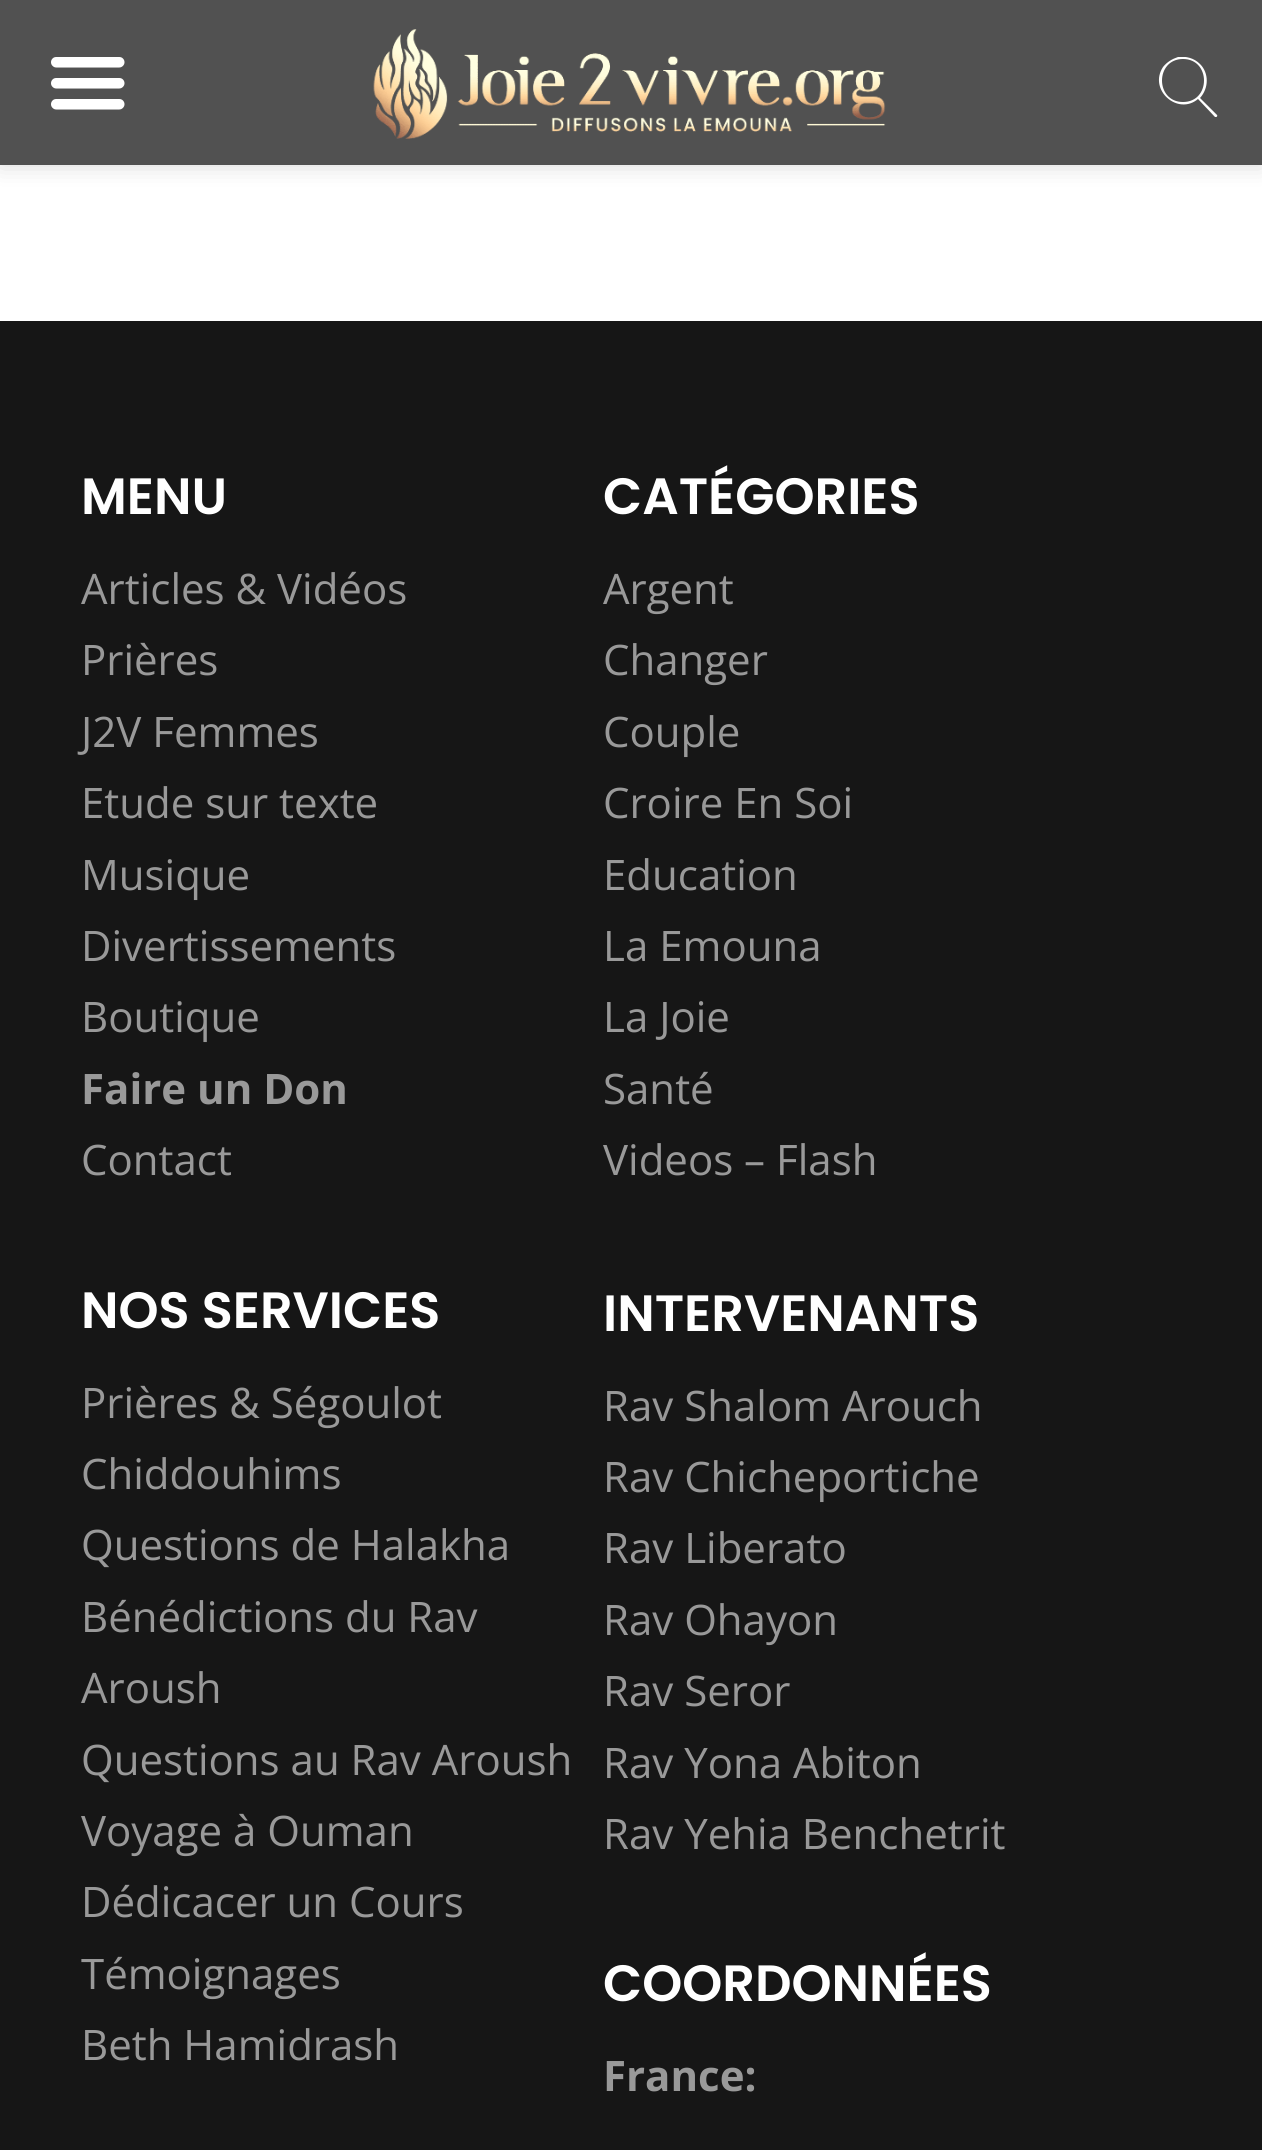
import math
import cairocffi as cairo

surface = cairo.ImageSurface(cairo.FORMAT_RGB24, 1262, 2150)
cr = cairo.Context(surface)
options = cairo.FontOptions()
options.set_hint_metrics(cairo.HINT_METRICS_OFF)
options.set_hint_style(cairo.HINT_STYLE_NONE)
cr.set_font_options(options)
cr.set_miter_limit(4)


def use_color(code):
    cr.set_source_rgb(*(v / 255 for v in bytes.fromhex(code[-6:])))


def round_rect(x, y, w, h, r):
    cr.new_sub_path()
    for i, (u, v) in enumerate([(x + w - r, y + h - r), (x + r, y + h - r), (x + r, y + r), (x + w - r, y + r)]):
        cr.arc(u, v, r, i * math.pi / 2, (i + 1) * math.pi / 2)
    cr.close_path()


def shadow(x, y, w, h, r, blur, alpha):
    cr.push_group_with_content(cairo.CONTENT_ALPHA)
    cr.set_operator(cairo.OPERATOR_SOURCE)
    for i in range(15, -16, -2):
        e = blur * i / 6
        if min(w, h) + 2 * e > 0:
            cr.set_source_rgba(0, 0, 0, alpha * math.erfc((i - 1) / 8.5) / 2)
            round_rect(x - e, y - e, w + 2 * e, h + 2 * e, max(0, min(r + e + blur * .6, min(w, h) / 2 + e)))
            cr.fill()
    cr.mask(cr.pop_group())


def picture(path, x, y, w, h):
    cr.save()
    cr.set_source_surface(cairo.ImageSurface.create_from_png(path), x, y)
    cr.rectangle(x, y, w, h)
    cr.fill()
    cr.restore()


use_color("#ffffff")
cr.paint()
use_color("#000000")
shadow(0, 0, 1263, 165, 0, 12, 0.15)
use_color("#515151")
cr.rectangle(0, 0, 1262, 165)
cr.fill()
picture("img1.png", 51, 57, 74, 53)
picture("img2.png", 373, 29, 513, 110)
cr.save()
cr.rectangle(1158, 57, 60, 60)
cr.clip()
use_color("#ffffff")
cr.new_path()
cr.move_to(1217, 115)
cr.line_to(1200, 98)
cr.curve_to(1209, 88, 1209, 73, 1200, 64)
cr.curve_to(1194, 58, 1186, 56, 1178, 57)
cr.curve_to(1172, 59, 1167, 62, 1163, 67)
cr.curve_to(1148, 90, 1178, 116, 1198, 99)
cr.line_to(1215, 117)
cr.curve_to(1216, 118, 1218, 116, 1217, 115)
cr.close_path()
cr.move_to(1183, 102)
cr.curve_to(1155, 102, 1155, 59, 1183, 59)
cr.curve_to(1211, 59, 1211, 102, 1183, 102)
cr.close_path()
cr.fill()
cr.restore()
use_color("#161616")
cr.rectangle(0, 321, 1262, 1829)
cr.fill()
cr.select_font_face("Poppins SemiBold")
cr.set_font_size(51)
use_color("#ffffff")
cr.move_to(81, 514)
cr.show_text("MENU")
cr.select_font_face("Open Sans")
cr.set_font_size(42)
use_color("#999999")
cr.move_to(81, 604)
cr.show_text("Articles & Vidéos")
cr.move_to(81, 675)
cr.show_text("Prières")
cr.move_to(81, 747)
cr.show_text("J2V Femmes")
cr.move_to(81, 818)
cr.show_text("Etude sur texte")
cr.move_to(81, 890)
cr.show_text("Musique")
cr.move_to(81, 961)
cr.show_text("Divertissements")
cr.move_to(81, 1032)
cr.show_text("Boutique")
cr.select_font_face("Open Sans", cairo.FONT_SLANT_NORMAL, cairo.FONT_WEIGHT_BOLD)
cr.move_to(81, 1104)
cr.show_text("Faire un Don")
cr.select_font_face("Open Sans")
cr.move_to(81, 1175)
cr.show_text("Contact")
cr.select_font_face("Poppins SemiBold")
cr.set_font_size(51)
use_color("#ffffff")
cr.move_to(603, 514)
cr.show_text("CATÉGORIES")
cr.select_font_face("Open Sans")
cr.set_font_size(42)
use_color("#999999")
cr.move_to(603, 604)
cr.show_text("Argent")
cr.move_to(603, 675)
cr.show_text("Changer")
cr.move_to(603, 747)
cr.show_text("Couple")
cr.move_to(603, 818)
cr.show_text("Croire En Soi")
cr.move_to(603, 890)
cr.show_text("Education")
cr.move_to(603, 961)
cr.show_text("La Emouna")
cr.move_to(603, 1032)
cr.show_text("La Joie")
cr.move_to(603, 1104)
cr.show_text("Santé")
cr.move_to(603, 1175)
cr.show_text("Videos – Flash")
cr.select_font_face("Poppins SemiBold")
cr.set_font_size(51)
use_color("#ffffff")
cr.move_to(81, 1328)
cr.show_text("NOS SERVICES")
cr.select_font_face("Open Sans")
cr.set_font_size(42)
use_color("#999999")
cr.move_to(81, 1418)
cr.show_text("Prières & Ségoulot")
cr.move_to(81, 1489)
cr.show_text("Chiddouhims")
cr.move_to(81, 1560)
cr.show_text("Questions de Halakha")
cr.move_to(81, 1632)
cr.show_text("Bénédictions du Rav")
cr.move_to(81, 1703)
cr.show_text("Aroush")
cr.move_to(81, 1775)
cr.show_text("Questions au Rav Aroush")
cr.move_to(81, 1846)
cr.show_text("Voyage à Ouman")
cr.move_to(81, 1917)
cr.show_text("Dédicacer un Cours")
cr.move_to(81, 1989)
cr.show_text("Témoignages")
cr.move_to(81, 2060)
cr.show_text("Beth Hamidrash")
cr.select_font_face("Poppins SemiBold")
cr.set_font_size(51)
use_color("#ffffff")
cr.move_to(603, 1331)
cr.show_text("INTERVENANTS")
cr.select_font_face("Open Sans")
cr.set_font_size(42)
use_color("#999999")
cr.move_to(603, 1421)
cr.show_text("Rav Shalom Arouch")
cr.move_to(603, 1492)
cr.show_text("Rav Chicheportiche")
cr.move_to(603, 1563)
cr.show_text("Rav Liberato")
cr.move_to(603, 1635)
cr.show_text("Rav Ohayon")
cr.move_to(603, 1706)
cr.show_text("Rav Seror")
cr.move_to(603, 1778)
cr.show_text("Rav Yona Abiton")
cr.move_to(603, 1849)
cr.show_text("Rav Yehia Benchetrit")
cr.select_font_face("Poppins SemiBold")
cr.set_font_size(51)
use_color("#ffffff")
cr.move_to(603, 2001)
cr.show_text("COORDONNÉES")
cr.select_font_face("Open Sans", cairo.FONT_SLANT_NORMAL, cairo.FONT_WEIGHT_BOLD)
cr.set_font_size(42)
use_color("#999999")
cr.move_to(603, 2091)
cr.show_text("France:")
surface.write_to_png("result.png")
